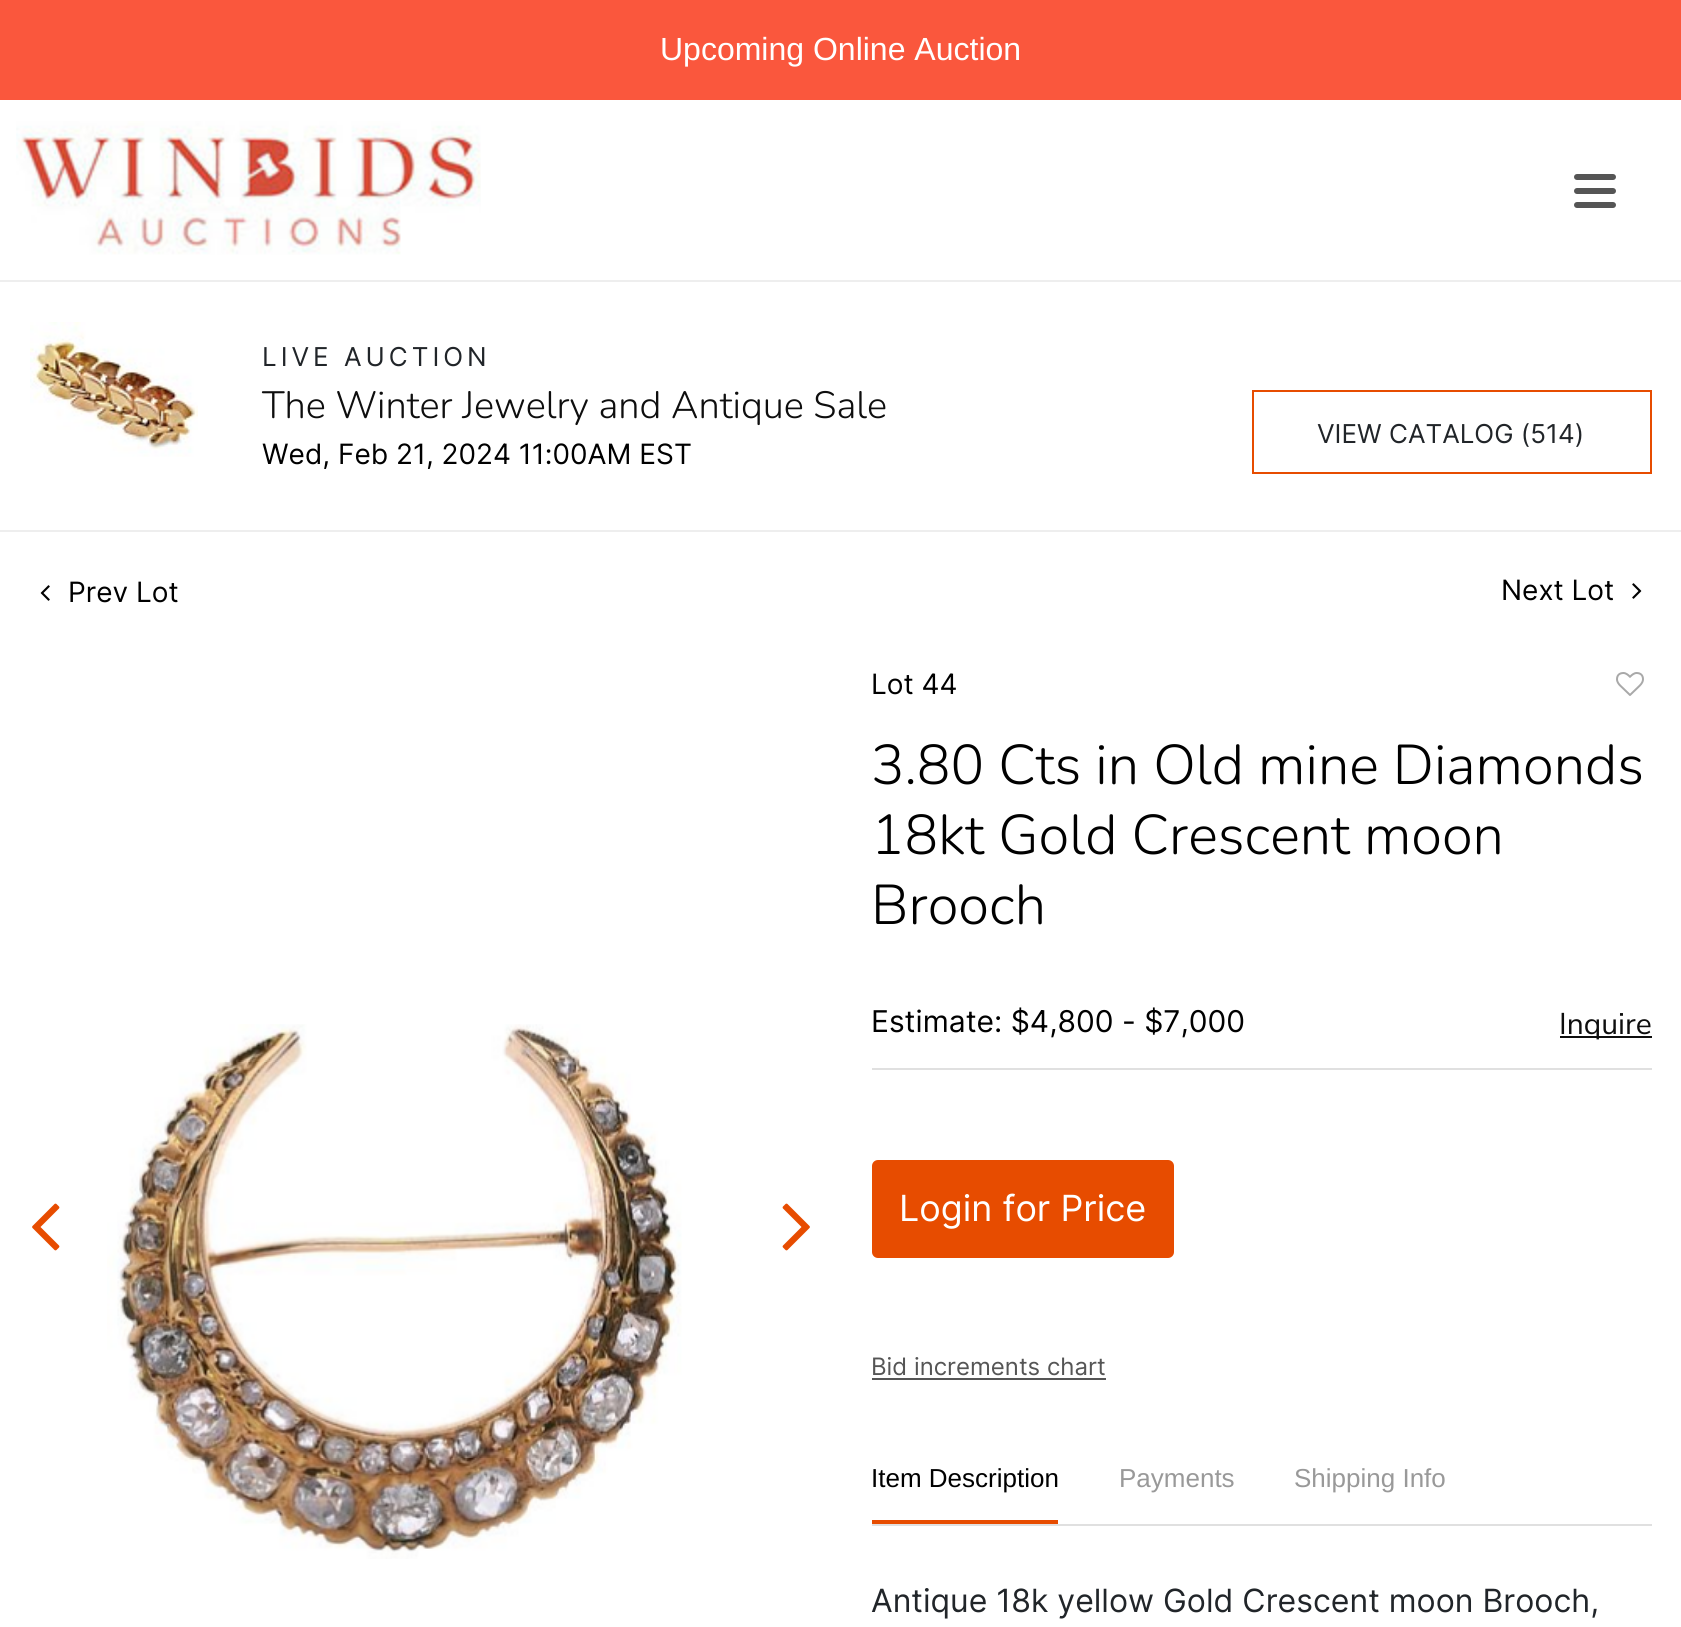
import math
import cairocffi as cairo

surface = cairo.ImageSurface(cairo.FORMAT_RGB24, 1681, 1627)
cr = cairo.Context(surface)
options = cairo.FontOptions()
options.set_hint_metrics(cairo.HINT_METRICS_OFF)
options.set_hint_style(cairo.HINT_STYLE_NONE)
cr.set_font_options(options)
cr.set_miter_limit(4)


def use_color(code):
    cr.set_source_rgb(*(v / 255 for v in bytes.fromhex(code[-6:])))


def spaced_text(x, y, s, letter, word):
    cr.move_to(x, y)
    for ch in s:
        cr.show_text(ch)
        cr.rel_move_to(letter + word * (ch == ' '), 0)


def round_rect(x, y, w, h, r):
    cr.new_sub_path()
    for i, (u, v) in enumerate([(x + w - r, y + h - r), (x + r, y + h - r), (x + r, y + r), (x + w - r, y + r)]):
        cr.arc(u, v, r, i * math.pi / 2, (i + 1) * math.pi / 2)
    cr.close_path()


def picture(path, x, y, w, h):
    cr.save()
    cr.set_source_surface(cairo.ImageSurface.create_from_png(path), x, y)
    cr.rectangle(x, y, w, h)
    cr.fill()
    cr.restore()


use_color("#ffffff")
cr.paint()
use_color("#eeeeee")
cr.rectangle(0, 280, 1681, 2)
cr.fill()
use_color("#fa573d")
cr.rectangle(0, 0, 1681, 100)
cr.fill()
cr.select_font_face("Liberation Sans")
cr.set_font_size(32)
use_color("#ffffff")
cr.move_to(660, 60)
cr.show_text("Upcoming Online Auction")
picture("img1.png", 16, 121, 465, 134)
use_color("#555555")
round_rect(1574, 174, 42, 6, 3)
cr.fill()
round_rect(1574, 188, 42, 6, 3)
cr.fill()
round_rect(1574, 202, 42, 6, 3)
cr.fill()
picture("img2.png", 30, 322, 168, 135)
cr.select_font_face("Inter")
cr.set_font_size(26)
use_color("#212529")
spaced_text(262, 366, "LIVE AUCTION", 4, 0)
cr.select_font_face("Nunito Light")
cr.set_font_size(38)
use_color("#0e0e0e")
cr.move_to(262, 418)
cr.show_text("The Winter Jewelry and Antique Sale")
cr.select_font_face("Inter")
cr.set_font_size(28)
use_color("#000000")
cr.move_to(262, 464)
cr.show_text("Wed, Feb 21, 2024 11:00AM EST")
cr.rectangle(1253, 391, 398, 82)
use_color("#e74c00")
cr.stroke()
cr.set_font_size(26)
use_color("#212529")
cr.move_to(1317, 443)
cr.show_text("VIEW CATALOG (514)")
use_color("#eeeeee")
cr.rectangle(0, 530, 1681, 2)
cr.fill()
picture("img3.png", 40, 585, 10, 16)
cr.set_font_size(28)
use_color("#000000")
cr.move_to(68, 602)
cr.show_text("Prev Lot")
cr.move_to(1501, 600)
cr.show_text("Next Lot")
picture("img4.png", 1632, 583, 10, 16)
picture("img5.png", 32, 1203, 28, 48)
picture("img6.png", 107, 1024, 575, 535)
picture("img7.png", 782, 1203, 28, 48)
cr.move_to(871, 694)
cr.show_text("Lot 44")
picture("img8.png", 1616, 672, 28, 24)
cr.select_font_face("Nunito Light")
cr.set_font_size(56)
cr.move_to(871, 784)
cr.show_text("3.80 Cts in Old mine Diamonds")
cr.move_to(871, 854)
cr.show_text("18kt Gold Crescent moon")
cr.move_to(871, 924)
cr.show_text("Brooch")
use_color("#e0e0e0")
cr.rectangle(872, 1068, 780, 2)
cr.fill()
cr.select_font_face("Inter")
cr.set_font_size(30)
use_color("#000000")
cr.move_to(871, 1032)
cr.show_text("Estimate: $4,800 - $7,000")
use_color("#0e0e0e")
cr.rectangle(1560, 1036, 92, 2)
cr.fill()
cr.select_font_face("Nunito Sans")
cr.move_to(1559, 1034)
cr.show_text("Inquire")
use_color("#e74c00")
round_rect(872, 1160, 302, 98, 6)
cr.fill()
cr.select_font_face("Inter")
cr.set_font_size(36)
use_color("#ffffff")
cr.move_to(899, 1221)
cr.show_text("Login for Price")
cr.set_font_size(24)
use_color("#555555")
cr.move_to(871, 1375)
cr.show_text("Bid increments chart")
cr.rectangle(872, 1378, 234, 2)
cr.fill()
use_color("#e0e0e0")
cr.rectangle(872, 1524, 780, 2)
cr.fill()
cr.select_font_face("Liberation Sans")
cr.set_font_size(26)
use_color("#000000")
cr.move_to(871, 1487)
cr.show_text("Item Description")
use_color("#e74c00")
cr.rectangle(872, 1520, 186, 4)
cr.fill()
use_color("#999999")
cr.move_to(1119, 1487)
cr.show_text("Payments")
cr.move_to(1294, 1487)
cr.show_text("Shipping Info")
cr.select_font_face("Inter")
cr.set_font_size(32)
use_color("#212529")
cr.move_to(871, 1612)
cr.show_text("Antique 18k yellow Gold Crescent moon Brooch,")
surface.write_to_png("result.png")
